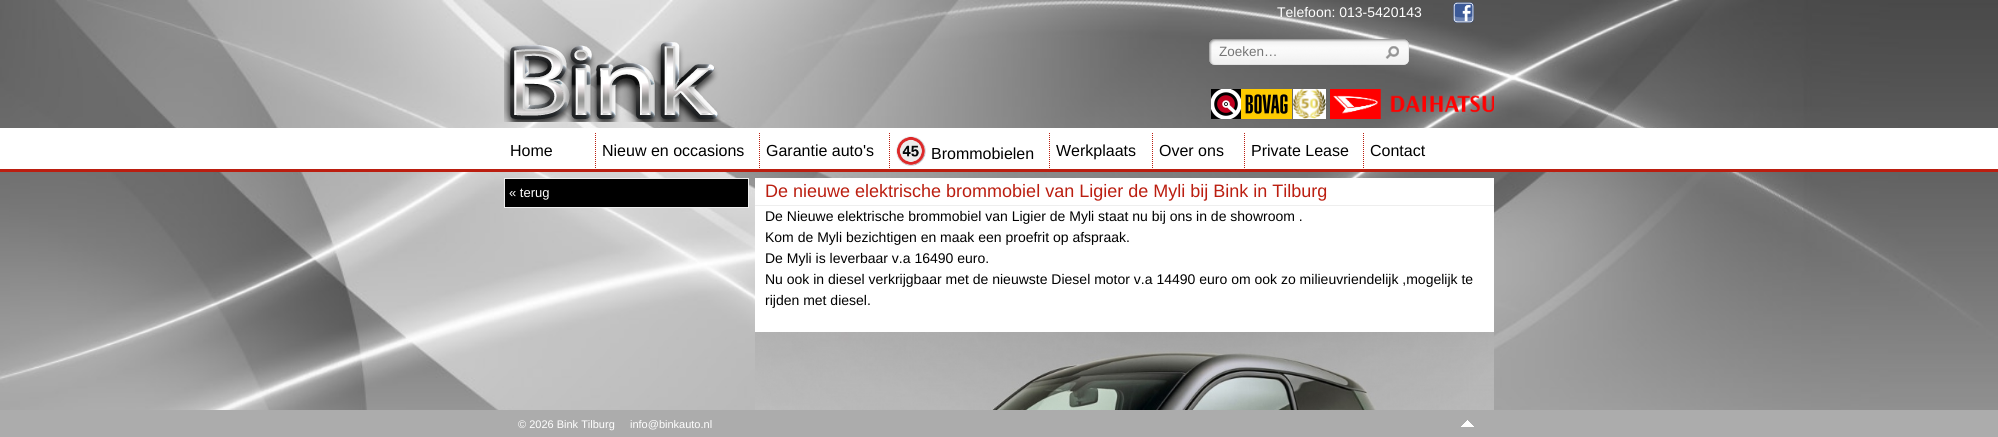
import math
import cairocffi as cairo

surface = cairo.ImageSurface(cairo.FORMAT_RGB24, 1998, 437)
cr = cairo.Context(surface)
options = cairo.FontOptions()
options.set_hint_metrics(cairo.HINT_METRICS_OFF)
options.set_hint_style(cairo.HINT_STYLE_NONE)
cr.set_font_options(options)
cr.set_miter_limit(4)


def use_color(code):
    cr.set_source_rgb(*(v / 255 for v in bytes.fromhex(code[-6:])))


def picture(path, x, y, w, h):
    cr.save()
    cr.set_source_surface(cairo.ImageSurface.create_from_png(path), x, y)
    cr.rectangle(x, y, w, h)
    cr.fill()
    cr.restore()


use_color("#ffffff")
cr.paint()
picture("img1.png", 0, 0, 1998, 410)
cr.select_font_face("Liberation Sans")
cr.set_font_size(14)
use_color("#ffffff")
cr.move_to(1277, 17)
cr.show_text("Telefoon: 013-5420143")
picture("img2.png", 1453, 2, 21, 21)
picture("img3.png", 504, 41, 217, 81)
picture("img4.png", 1209, 39, 200, 26)
cr.set_font_size(13.5)
use_color("#757575")
cr.move_to(1219, 56)
cr.show_text("Zoeken…")
picture("img5.png", 1211, 89, 81, 30)
picture("img6.png", 1293, 89, 33, 30)
picture("img7.png", 1330, 89, 164, 30)
use_color("#ffffff")
cr.rectangle(0, 128, 1998, 41)
cr.fill()
cr.new_path()
cr.move_to(595.5, 133)
cr.line_to(595.5, 169)
use_color("#bb1e10")
cr.set_line_width(1)
cr.set_dash([1, 1])
cr.stroke()
cr.set_font_size(16)
use_color("#000000")
cr.move_to(510, 156)
cr.show_text("Home")
cr.new_path()
cr.move_to(759.5, 133)
cr.line_to(759.5, 169)
use_color("#bb1e10")
cr.stroke()
use_color("#000000")
cr.move_to(602, 156)
cr.show_text("Nieuw en occasions")
cr.new_path()
cr.move_to(889.5, 133)
cr.line_to(889.5, 169)
use_color("#bb1e10")
cr.stroke()
use_color("#000000")
cr.move_to(766, 156)
cr.show_text("Garantie auto's")
cr.new_path()
cr.move_to(1049.5, 133)
cr.line_to(1049.5, 169)
use_color("#bb1e10")
cr.stroke()
picture("img8.png", 896, 136, 30, 30)
use_color("#000000")
cr.move_to(931, 159)
cr.show_text("Brommobielen")
cr.new_path()
cr.move_to(1152.5, 133)
cr.line_to(1152.5, 169)
use_color("#bb1e10")
cr.stroke()
use_color("#000000")
cr.move_to(1056, 156)
cr.show_text("Werkplaats")
cr.new_path()
cr.move_to(1244.5, 133)
cr.line_to(1244.5, 169)
use_color("#bb1e10")
cr.stroke()
use_color("#000000")
cr.move_to(1159, 156)
cr.show_text("Over ons")
cr.new_path()
cr.move_to(1363.5, 133)
cr.line_to(1363.5, 169)
use_color("#bb1e10")
cr.stroke()
use_color("#000000")
cr.move_to(1251, 156)
cr.show_text("Private Lease")
cr.move_to(1370, 156)
cr.show_text("Contact")
use_color("#bb1e10")
cr.rectangle(0, 169, 1998, 3)
cr.fill()
use_color("#000000")
cr.rectangle(504.5, 178.5, 244, 29)
cr.fill_preserve()
use_color("#eeeeee")
cr.set_dash([])
cr.stroke()
cr.set_font_size(13)
use_color("#ffffff")
cr.move_to(509, 197)
cr.show_text("« terug")
cr.rectangle(755, 178, 739, 154)
cr.fill()
use_color("#eeeeee")
cr.rectangle(755, 205, 739, 1)
cr.fill()
cr.set_font_size(18)
use_color("#bb1e10")
cr.move_to(765, 197)
cr.show_text("De nieuwe elektrische brommobiel van Ligier de Myli bij Bink in Tilburg")
cr.set_font_size(14)
use_color("#000000")
cr.move_to(765, 221)
cr.show_text("De Nieuwe elektrische brommobiel van Ligier de Myli staat nu bij ons in de showroom .")
cr.move_to(765, 242)
cr.show_text("Kom de Myli bezichtigen en maak een proefrit op afspraak.")
cr.move_to(765, 263)
cr.show_text("De Myli is leverbaar v.a 16490 euro.")
cr.move_to(765, 284)
cr.show_text("Nu ook in diesel verkrijgbaar met de nieuwste Diesel motor v.a 14490 euro om ook zo milieuvriendelijk ,mogelijk te")
cr.move_to(765, 305)
cr.show_text("rijden met diesel.")
picture("img9.png", 755, 332, 739, 78)
use_color("#acacac")
cr.rectangle(0, 410, 1998, 27)
cr.fill()
cr.set_font_size(11)
use_color("#ffffff")
cr.move_to(518, 428)
cr.show_text("© 2026 Bink Tilburg")
cr.move_to(630, 428)
cr.show_text("info@binkauto.nl")
picture("img10.png", 1461, 420, 13, 7)
surface.write_to_png("result.png")
